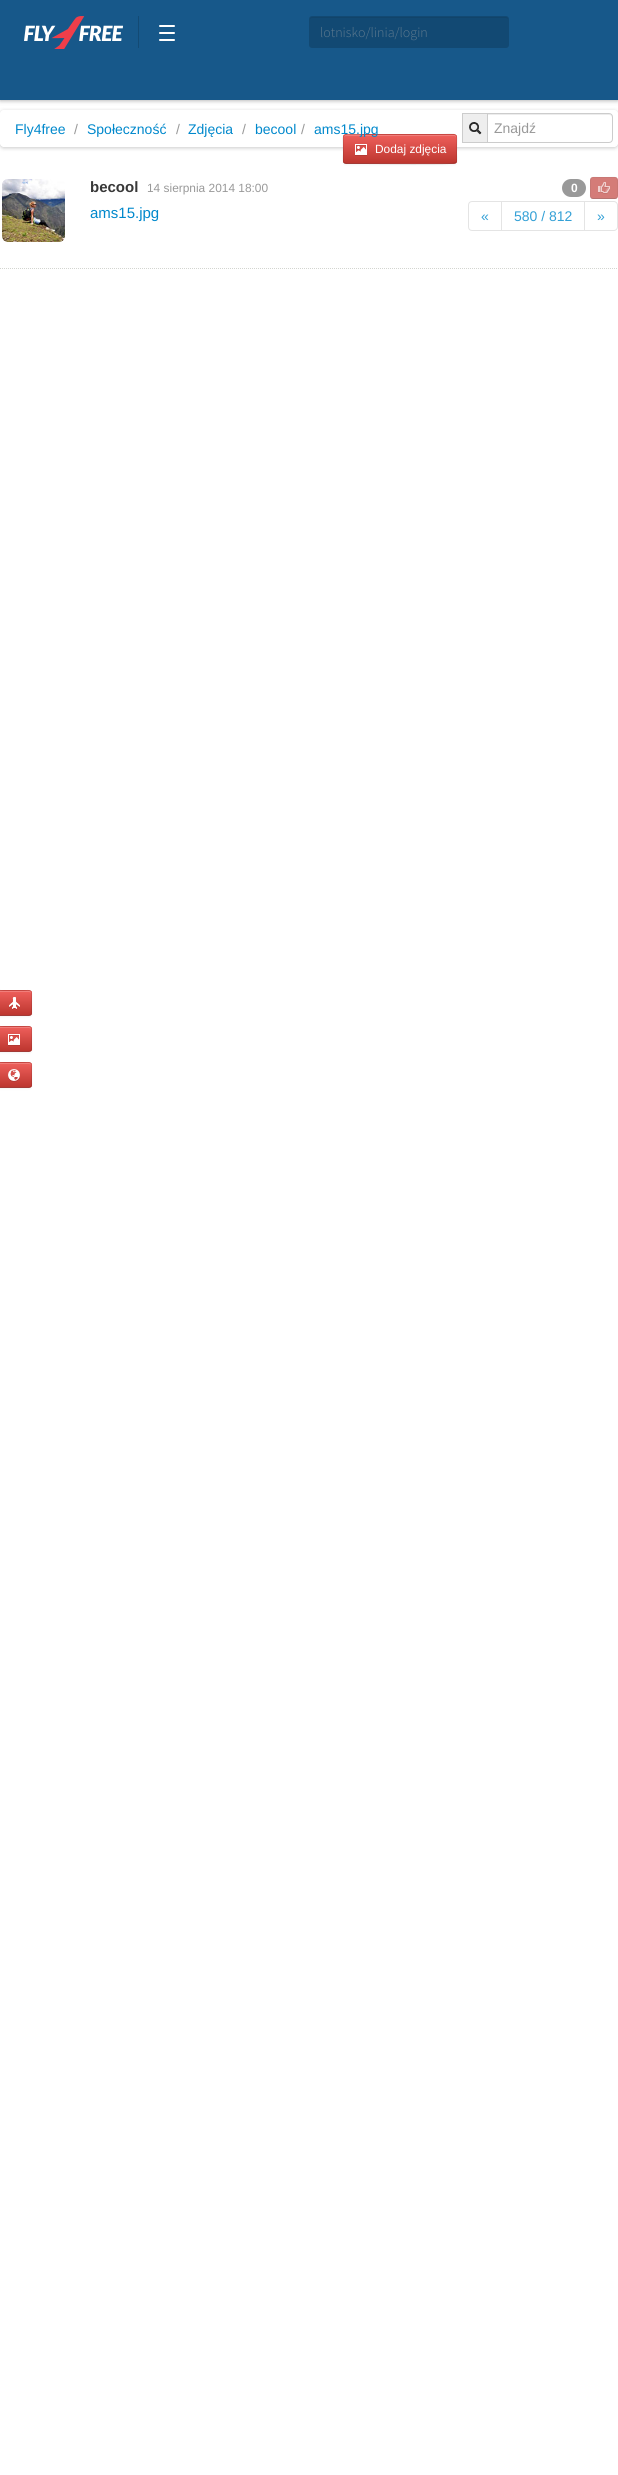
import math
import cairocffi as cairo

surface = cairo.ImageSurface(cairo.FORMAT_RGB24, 618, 2475)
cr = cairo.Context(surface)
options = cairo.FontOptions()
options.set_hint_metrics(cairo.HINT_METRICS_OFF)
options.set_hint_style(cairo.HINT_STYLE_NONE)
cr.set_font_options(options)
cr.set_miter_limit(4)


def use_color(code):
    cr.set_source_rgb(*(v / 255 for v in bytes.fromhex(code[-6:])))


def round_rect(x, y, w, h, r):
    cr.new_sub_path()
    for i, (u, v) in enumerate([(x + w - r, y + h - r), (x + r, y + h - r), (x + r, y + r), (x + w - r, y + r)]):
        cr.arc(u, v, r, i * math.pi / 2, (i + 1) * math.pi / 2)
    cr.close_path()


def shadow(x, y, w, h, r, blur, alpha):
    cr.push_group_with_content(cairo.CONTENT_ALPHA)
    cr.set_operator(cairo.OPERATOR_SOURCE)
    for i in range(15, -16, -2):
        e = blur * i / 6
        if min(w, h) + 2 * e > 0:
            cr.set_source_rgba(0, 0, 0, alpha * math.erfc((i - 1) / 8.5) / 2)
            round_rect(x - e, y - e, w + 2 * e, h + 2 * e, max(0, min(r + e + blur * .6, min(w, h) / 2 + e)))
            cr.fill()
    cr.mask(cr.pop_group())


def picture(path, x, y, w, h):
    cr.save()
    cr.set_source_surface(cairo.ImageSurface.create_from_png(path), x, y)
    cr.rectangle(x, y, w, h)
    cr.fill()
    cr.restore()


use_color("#ffffff")
cr.paint()
use_color("#000000")
shadow(0, 0, 618, 100, 0, 2.5, 0.4)
use_color("#17588a")
cr.rectangle(0, 0, 618, 100)
cr.fill()
picture("img1.png", 24, 16, 99, 33)
use_color("#134a74")
cr.rectangle(138, 16, 1, 32)
cr.fill()
use_color("#ffffff")
round_rect(159, 39, 16, 2, 1)
cr.fill()
round_rect(159, 25, 16, 2, 1)
cr.fill()
round_rect(159, 32, 16, 2, 1)
cr.fill()
use_color("#124973")
round_rect(309, 16, 200, 32, 3)
cr.fill()
use_color("#11446a")
cr.new_path()
cr.move_to(312, 18)
cr.line_to(506, 18)
cr.line_to(508, 19)
cr.line_to(508, 20)
cr.curve_to(508, 19, 508, 17, 506, 17)
cr.line_to(312, 17)
cr.curve_to(310, 17, 310, 19, 310, 20)
cr.curve_to(310, 19, 311, 18, 312, 18)
cr.close_path()
cr.fill()
cr.select_font_face("Source Sans Pro Light")
cr.set_font_size(14)
use_color("#5e7a8f")
cr.move_to(320, 37)
cr.show_text("lotnisko/linia/login")
cr.save()
cr.set_fill_rule(cairo.FILL_RULE_EVEN_ODD)
cr.new_path()
cr.move_to(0, 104)
cr.line_to(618, 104)
cr.line_to(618, 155)
cr.line_to(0, 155)
cr.close_path()
cr.move_to(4, 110)
cr.line_to(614, 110)
cr.curve_to(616, 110, 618, 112, 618, 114)
cr.line_to(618, 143)
cr.curve_to(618, 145, 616, 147, 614, 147)
cr.line_to(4, 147)
cr.curve_to(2, 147, 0, 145, 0, 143)
cr.line_to(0, 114)
cr.curve_to(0, 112, 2, 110, 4, 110)
cr.close_path()
cr.clip()
use_color("#000000")
shadow(0, 111, 618, 37, 4, 2, 0.22)
cr.restore()
cr.select_font_face("Liberation Sans")
use_color("#0088cc")
cr.move_to(15, 134)
cr.show_text("Fly4free")
use_color("#999999")
cr.move_to(74, 134)
cr.show_text("/")
use_color("#0088cc")
cr.move_to(87, 134)
cr.show_text("Społeczność")
use_color("#999999")
cr.move_to(176, 134)
cr.show_text("/")
use_color("#0088cc")
cr.move_to(188, 134)
cr.show_text("Zdjęcia")
use_color("#999999")
cr.move_to(242, 134)
cr.show_text("/")
use_color("#0088cc")
cr.move_to(255, 134)
cr.show_text("becool")
use_color("#999999")
cr.move_to(301, 134)
cr.show_text("/")
use_color("#000000")
shadow(343, 135, 114, 30, 3, 1, 0.05)
use_color("#da4f49")
round_rect(343, 134, 114, 30, 3)
cr.fill()
cr.save()
round_rect(343, 134, 114, 30, 3)
cr.clip()
gradient = cairo.LinearGradient(400, 135, 400, 163)
gradient.add_color_stop_rgba(0, 0.933, 0.373, 0.357, 1)
gradient.add_color_stop_rgba(1, 0.741, 0.212, 0.184, 1)
cr.set_source(gradient)
cr.rectangle(343, 135, 114, 28)
cr.fill()
cr.restore()
cr.set_source_rgba(1, 1, 1, 0.2)
cr.new_path()
cr.move_to(346, 136)
cr.line_to(454, 136)
cr.curve_to(455, 136, 456, 137, 456, 138)
cr.curve_to(456, 137, 456, 135, 454, 135)
cr.line_to(364, 135)
cr.curve_to(364, 135, 344, 130, 344, 138)
cr.curve_to(344, 137, 345, 136, 346, 136)
cr.close_path()
cr.fill()
cr.new_path()
cr.move_to(456, 163)
cr.line_to(455.5, 163)
cr.curve_to(453.5, 164.5, 373, 163.5, 364, 163.5)
cr.line_to(346, 163.5)
cr.line_to(344, 163)
cr.set_source_rgba(0, 0, 0, 0.25)
cr.set_line_width(1)
cr.stroke()
cr.new_path()
cr.move_to(344, 163)
cr.curve_to(342.5, 161, 343.5, 155, 343.5, 153)
cr.curve_to(343.5, 130, 339, 134.5, 364, 134.5)
cr.line_to(436, 134.5)
cr.curve_to(461, 134.5, 456.5, 130, 456.5, 153)
cr.curve_to(456.5, 155, 457.5, 161, 456, 163)
cr.set_source_rgba(0, 0, 0, 0.1)
cr.stroke()
use_color("#0088cc")
cr.move_to(314, 134)
cr.show_text("ams15.jpg")
use_color("#eeeeee")
cr.rectangle(462.5, 113.5, 25, 29)
cr.fill_preserve()
use_color("#cccccc")
cr.stroke()
picture("img2.png", 469, 122, 13, 13)
use_color("#ffffff")
cr.new_path()
cr.move_to(487, 113)
cr.line_to(609, 113)
cr.curve_to(611, 113, 613, 115, 613, 117)
cr.line_to(613, 139)
cr.curve_to(613, 141, 611, 143, 609, 143)
cr.line_to(487, 143)
cr.close_path()
cr.fill()
use_color("#ececec")
cr.new_path()
cr.move_to(488, 115)
cr.line_to(609, 115)
cr.curve_to(611, 115, 612, 116, 612, 118)
cr.line_to(612, 117)
cr.curve_to(612, 115, 611, 114, 609, 114)
cr.line_to(488, 114)
cr.close_path()
cr.fill()
cr.new_path()
cr.move_to(487.5, 113.5)
cr.line_to(609, 113.5)
cr.curve_to(611, 113.5, 612.5, 115, 612.5, 117)
cr.line_to(612.5, 139)
cr.curve_to(612.5, 141, 611, 142.5, 609, 142.5)
cr.line_to(487.5, 142.5)
cr.close_path()
use_color("#cccccc")
cr.stroke()
use_color("#999999")
cr.move_to(494, 133)
cr.show_text("Znajdź")
picture("img3.png", 355, 144, 12, 12)
cr.set_font_size(11.9)
use_color("#ffffff")
cr.move_to(375, 153)
cr.show_text("Dodaj zdjęcia")
cr.new_path()
cr.move_to(0, 268.5)
cr.line_to(618, 268.5)
use_color("#d3d5d0")
cr.set_dash([1, 1])
cr.stroke()
picture("img4.png", 2, 179, 63, 63)
cr.select_font_face("Liberation Sans", cairo.FONT_SLANT_NORMAL, cairo.FONT_WEIGHT_BOLD)
cr.set_font_size(15)
use_color("#383838")
cr.move_to(90, 192)
cr.show_text("becool")
cr.select_font_face("Liberation Sans")
cr.set_font_size(11.9)
use_color("#999999")
cr.move_to(147, 192)
cr.show_text("14 sierpnia 2014 18:00")
round_rect(562, 179, 24, 18, 9)
cr.fill()
cr.select_font_face("Liberation Sans", cairo.FONT_SLANT_NORMAL, cairo.FONT_WEIGHT_BOLD)
cr.set_font_size(12)
use_color("#ffffff")
cr.move_to(571, 192)
cr.show_text("0")
use_color("#d47c78")
round_rect(590, 177, 28, 22, 3)
cr.fill()
cr.new_path()
cr.move_to(617, 198)
cr.curve_to(616.5, 198, 615.5, 198.5, 615, 198.5)
cr.line_to(593, 198.5)
cr.curve_to(592.5, 198.5, 591.5, 198, 591, 198)
cr.set_source_rgba(0.349, 0.349, 0.349, 0.25)
cr.set_dash([])
cr.stroke()
cr.new_path()
cr.move_to(591, 198)
cr.curve_to(590, 196.5, 590.5, 194.5, 590.5, 193.5)
cr.line_to(590.5, 188)
cr.curve_to(590.5, 174.5, 589.5, 177.5, 604, 177.5)
cr.curve_to(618.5, 177.5, 617.5, 174.5, 617.5, 188)
cr.line_to(617.5, 193.5)
cr.curve_to(617.5, 194.5, 618, 196.5, 617, 198)
cr.set_source_rgba(0.349, 0.349, 0.349, 0.1)
cr.stroke()
picture("img5.png", 598, 182, 12, 12)
cr.select_font_face("Liberation Sans")
cr.set_font_size(15)
use_color("#0088cc")
cr.move_to(90, 218)
cr.show_text("ams15.jpg")
cr.new_path()
cr.move_to(472, 201.5)
cr.line_to(501.5, 201.5)
cr.line_to(501.5, 230.5)
cr.line_to(472, 230.5)
cr.curve_to(470, 230.5, 468.5, 229, 468.5, 227)
cr.line_to(468.5, 205)
cr.curve_to(468.5, 203, 470, 201.5, 472, 201.5)
cr.close_path()
use_color("#e4e4e4")
cr.stroke()
cr.set_font_size(14)
use_color("#33a0d6")
cr.move_to(481, 221)
cr.show_text("«")
use_color("#e4e4e4")
cr.rectangle(502, 201, 83, 1)
cr.fill()
cr.rectangle(584, 201, 1, 30)
cr.fill()
cr.rectangle(502, 230, 83, 1)
cr.fill()
use_color("#33a0d6")
cr.move_to(514, 221)
cr.show_text("580 / 812")
use_color("#e4e4e4")
cr.set_fill_rule(cairo.FILL_RULE_EVEN_ODD)
cr.new_path()
cr.move_to(585, 201)
cr.line_to(614, 201)
cr.curve_to(616, 201, 618, 203, 618, 205)
cr.line_to(618, 227)
cr.curve_to(618, 229, 616, 231, 614, 231)
cr.line_to(585, 231)
cr.close_path()
cr.move_to(585, 202)
cr.line_to(614, 202)
cr.curve_to(615.5, 202, 617, 203.5, 617, 205)
cr.line_to(617, 227)
cr.curve_to(617, 228.5, 615.5, 230, 614, 230)
cr.line_to(585, 230)
cr.close_path()
cr.fill()
use_color("#33a0d6")
cr.move_to(597, 221)
cr.show_text("»")
use_color("#000000")
shadow(-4, 991, 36, 26, 3, 1, 0.05)
use_color("#da4f49")
round_rect(-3, 990, 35, 26, 3)
cr.fill()
cr.save()
cr.set_fill_rule(cairo.FILL_RULE_WINDING)
round_rect(-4, 990, 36, 26, 3)
cr.clip()
gradient = cairo.LinearGradient(14, 991, 14, 1015)
gradient.add_color_stop_rgba(0, 0.933, 0.373, 0.357, 1)
gradient.add_color_stop_rgba(1, 0.741, 0.212, 0.184, 1)
cr.set_source(gradient)
cr.rectangle(0, 991, 32, 24)
cr.fill()
cr.restore()
use_color("#f17e7b")
cr.set_fill_rule(cairo.FILL_RULE_WINDING)
cr.new_path()
cr.move_to(-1, 992)
cr.line_to(29, 992)
cr.curve_to(30, 992, 31, 993, 31, 994)
cr.curve_to(31, 989.5, 28, 991, 24, 991)
cr.line_to(4, 991)
cr.curve_to(0, 991, -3, 989.5, -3, 994)
cr.curve_to(-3, 993, -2, 992, -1, 992)
cr.close_path()
cr.fill()
cr.new_path()
cr.move_to(31, 1015)
cr.curve_to(30.5, 1015, 29.5, 1015.5, 29, 1015.5)
cr.line_to(-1, 1015.5)
cr.curve_to(-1.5, 1015.5, -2.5, 1015, -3, 1015)
cr.set_source_rgba(0, 0, 0, 0.25)
cr.stroke()
cr.new_path()
cr.move_to(-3, 1015)
cr.curve_to(-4, 1013.5, -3.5, 1011, -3.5, 1009.5)
cr.line_to(-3.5, 996.5)
cr.curve_to(-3.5, 989.5, -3, 990.5, 4, 990.5)
cr.line_to(24, 990.5)
cr.curve_to(31, 990.5, 31.5, 989.5, 31.5, 996.5)
cr.line_to(31.5, 1009.5)
cr.curve_to(31.5, 1011, 32, 1013.5, 31, 1015)
cr.set_source_rgba(0, 0, 0, 0.1)
cr.stroke()
picture("img6.png", 9, 997, 11, 13)
use_color("#000000")
shadow(-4, 1027, 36, 26, 3, 1, 0.05)
use_color("#da4f49")
round_rect(-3, 1026, 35, 26, 3)
cr.fill()
cr.save()
round_rect(-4, 1026, 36, 26, 3)
cr.clip()
gradient = cairo.LinearGradient(14, 1027, 14, 1051)
gradient.add_color_stop_rgba(0, 0.933, 0.373, 0.357, 1)
gradient.add_color_stop_rgba(1, 0.741, 0.212, 0.184, 1)
cr.set_source(gradient)
cr.rectangle(0, 1027, 32, 24)
cr.fill()
cr.restore()
use_color("#f17e7b")
cr.new_path()
cr.move_to(-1, 1028)
cr.line_to(29, 1028)
cr.curve_to(30, 1028, 31, 1029, 31, 1030)
cr.curve_to(31, 1025.5, 28, 1027, 24, 1027)
cr.line_to(4, 1027)
cr.curve_to(0, 1027, -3, 1025.5, -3, 1030)
cr.curve_to(-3, 1029, -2, 1028, -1, 1028)
cr.close_path()
cr.fill()
cr.new_path()
cr.move_to(31, 1051)
cr.curve_to(30.5, 1051, 29.5, 1051.5, 29, 1051.5)
cr.line_to(-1, 1051.5)
cr.curve_to(-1.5, 1051.5, -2.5, 1051, -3, 1051)
cr.set_source_rgba(0, 0, 0, 0.25)
cr.stroke()
cr.new_path()
cr.move_to(-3, 1051)
cr.curve_to(-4, 1049.5, -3.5, 1047, -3.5, 1045.5)
cr.line_to(-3.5, 1032.5)
cr.curve_to(-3.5, 1025.5, -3, 1026.5, 4, 1026.5)
cr.line_to(24, 1026.5)
cr.curve_to(31, 1026.5, 31.5, 1025.5, 31.5, 1032.5)
cr.line_to(31.5, 1045.5)
cr.curve_to(31.5, 1047, 32, 1049.5, 31, 1051)
cr.set_source_rgba(0, 0, 0, 0.1)
cr.stroke()
picture("img7.png", 8, 1034, 12, 12)
use_color("#000000")
shadow(-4, 1063, 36, 26, 3, 1, 0.05)
use_color("#da4f49")
round_rect(-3, 1062, 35, 26, 3)
cr.fill()
cr.save()
round_rect(-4, 1062, 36, 26, 3)
cr.clip()
gradient = cairo.LinearGradient(14, 1063, 14, 1087)
gradient.add_color_stop_rgba(0, 0.933, 0.373, 0.357, 1)
gradient.add_color_stop_rgba(1, 0.741, 0.212, 0.184, 1)
cr.set_source(gradient)
cr.rectangle(0, 1063, 32, 24)
cr.fill()
cr.restore()
use_color("#f17e7b")
cr.new_path()
cr.move_to(-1, 1064)
cr.line_to(29, 1064)
cr.curve_to(30, 1064, 31, 1065, 31, 1066)
cr.curve_to(31, 1061.5, 28, 1063, 24, 1063)
cr.line_to(4, 1063)
cr.curve_to(0, 1063, -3, 1061.5, -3, 1066)
cr.curve_to(-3, 1065, -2, 1064, -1, 1064)
cr.close_path()
cr.fill()
cr.new_path()
cr.move_to(31, 1087)
cr.curve_to(30.5, 1087, 29.5, 1087.5, 29, 1087.5)
cr.line_to(-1, 1087.5)
cr.curve_to(-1.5, 1087.5, -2.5, 1087, -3, 1087)
cr.set_source_rgba(0, 0, 0, 0.25)
cr.stroke()
cr.new_path()
cr.move_to(-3, 1087)
cr.curve_to(-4, 1085.5, -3.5, 1083, -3.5, 1081.5)
cr.line_to(-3.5, 1068.5)
cr.curve_to(-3.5, 1061.5, -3, 1062.5, 4, 1062.5)
cr.line_to(24, 1062.5)
cr.curve_to(31, 1062.5, 31.5, 1061.5, 31.5, 1068.5)
cr.line_to(31.5, 1081.5)
cr.curve_to(31.5, 1083, 32, 1085.5, 31, 1087)
cr.set_source_rgba(0, 0, 0, 0.1)
cr.stroke()
picture("img8.png", 8, 1069, 12, 13)
surface.write_to_png("result.png")
